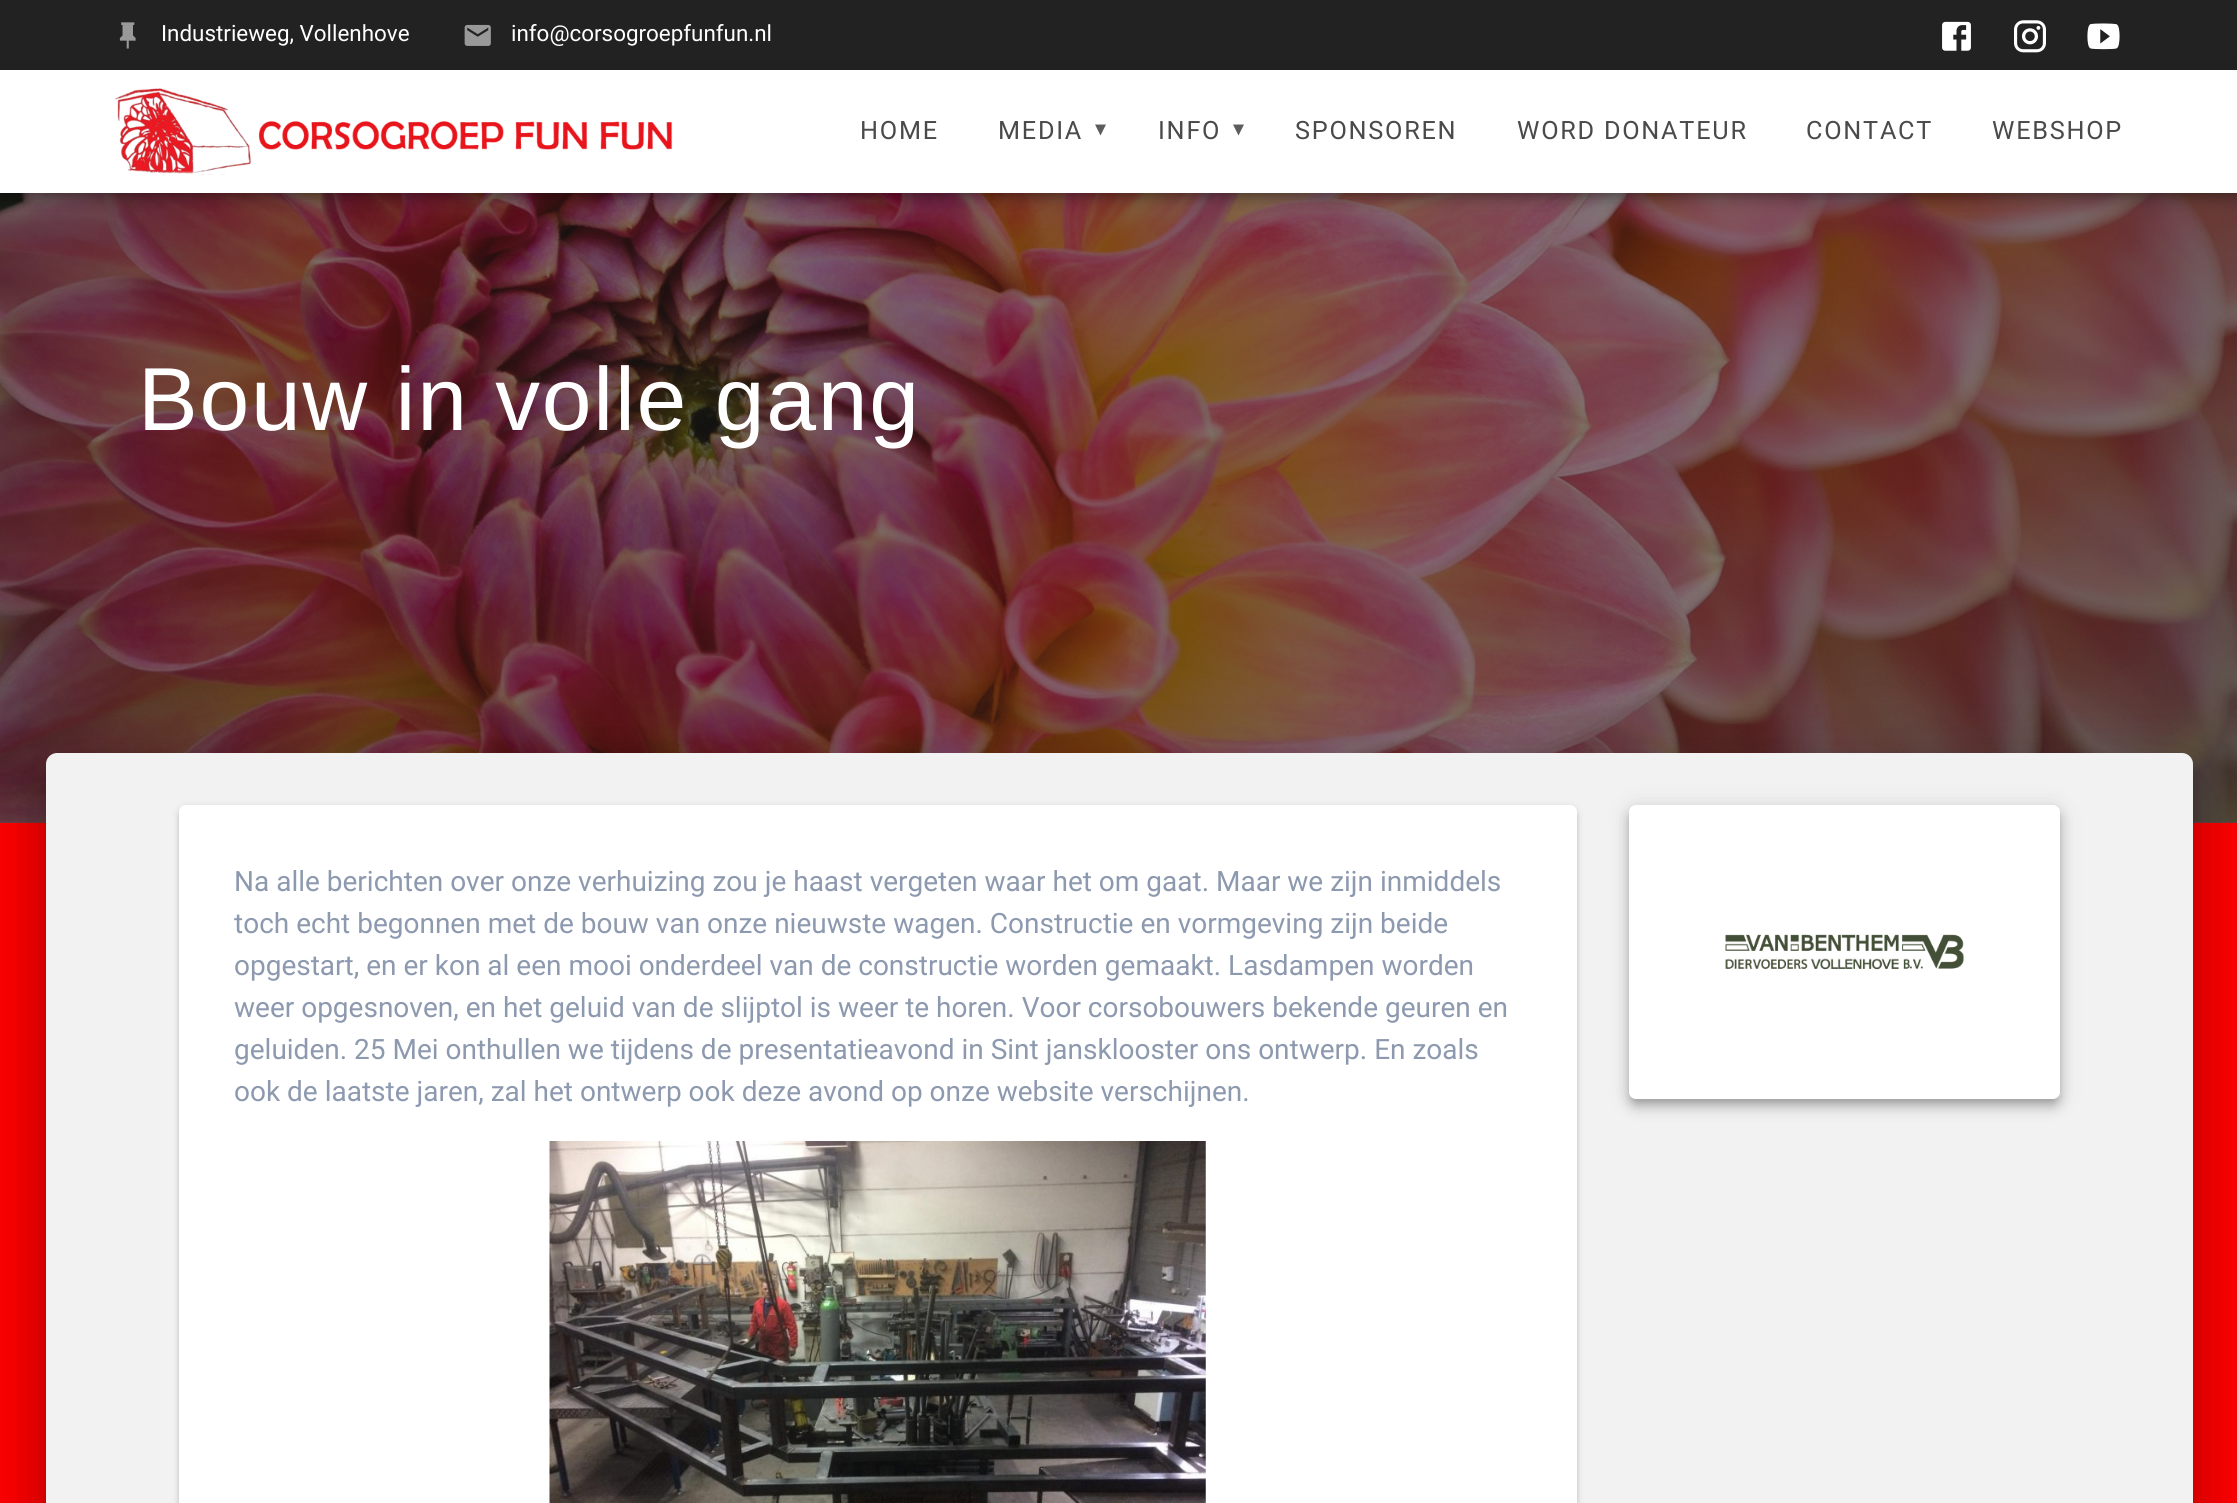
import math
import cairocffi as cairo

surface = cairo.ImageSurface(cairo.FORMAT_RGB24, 2237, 1503)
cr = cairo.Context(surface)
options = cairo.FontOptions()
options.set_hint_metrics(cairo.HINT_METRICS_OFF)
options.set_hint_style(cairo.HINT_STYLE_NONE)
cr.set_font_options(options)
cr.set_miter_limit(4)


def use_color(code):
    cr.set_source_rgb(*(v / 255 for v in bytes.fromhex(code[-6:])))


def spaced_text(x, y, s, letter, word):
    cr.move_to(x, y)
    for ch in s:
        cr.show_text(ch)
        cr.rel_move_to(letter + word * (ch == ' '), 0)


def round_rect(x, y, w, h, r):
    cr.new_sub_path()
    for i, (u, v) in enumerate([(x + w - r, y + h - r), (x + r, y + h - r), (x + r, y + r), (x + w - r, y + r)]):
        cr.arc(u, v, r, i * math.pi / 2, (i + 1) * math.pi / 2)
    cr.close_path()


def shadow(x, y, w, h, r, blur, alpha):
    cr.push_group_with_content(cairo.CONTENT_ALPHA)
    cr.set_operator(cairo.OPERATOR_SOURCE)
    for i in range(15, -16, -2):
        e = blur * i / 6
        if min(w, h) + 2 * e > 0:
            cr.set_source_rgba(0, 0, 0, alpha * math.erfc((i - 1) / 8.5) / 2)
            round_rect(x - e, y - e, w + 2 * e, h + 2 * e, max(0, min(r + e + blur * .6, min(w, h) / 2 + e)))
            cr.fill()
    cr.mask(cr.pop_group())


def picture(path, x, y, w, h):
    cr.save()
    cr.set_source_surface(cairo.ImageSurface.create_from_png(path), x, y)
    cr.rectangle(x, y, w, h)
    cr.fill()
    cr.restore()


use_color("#ff0000")
cr.paint()
use_color("#222222")
cr.rectangle(0, 0, 2237, 70)
cr.fill()
picture("img1.png", 119, 22, 17, 27)
cr.select_font_face("Roboto")
cr.set_font_size(22.4)
use_color("#ffffff")
cr.move_to(161, 41)
cr.show_text("Industrieweg, Vollenhove")
picture("img2.png", 464, 24, 27, 22)
cr.move_to(511, 41)
cr.show_text("info@corsogroepfunfun.nl")
picture("img3.png", 1942, 21, 29, 30)
picture("img4.png", 2014, 20, 32, 33)
picture("img5.png", 2087, 23, 33, 27)
use_color("#823b3b")
cr.rectangle(0, 822, 2237, 1)
cr.fill()
picture("img7.png", 0, 193, 2237, 630)
use_color("#000000")
shadow(0, 72, 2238, 122, 0, 12, 0.12)
shadow(0, 79, 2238, 122, 0, 7, 0.14)
shadow(2, 77, 2235, 119, 0, 4.5, 0.2)
use_color("#ffffff")
cr.rectangle(0, 70, 2237, 123)
cr.fill()
picture("img6.png", 114, 88, 559, 87)
cr.set_font_size(25.25)
use_color("#4a4a4a")
spaced_text(860, 139, "HOME", 1.75, 0)
spaced_text(998, 139, "MEDIA", 1.75, 0)
use_color("#5c5c5c")
cr.new_path()
cr.move_to(1095, 124.5)
cr.line_to(1100.5, 135.5)
cr.line_to(1106, 124.5)
cr.close_path()
cr.fill()
use_color("#4a4a4a")
spaced_text(1158, 139, "INFO", 1.75, 0)
use_color("#5c5c5c")
cr.new_path()
cr.move_to(1233, 124.5)
cr.line_to(1238.5, 135.5)
cr.line_to(1244, 124.5)
cr.close_path()
cr.fill()
use_color("#4a4a4a")
spaced_text(1295, 139, "SPONSOREN", 1.75, 0)
spaced_text(1517, 139, "WORD DONATEUR", 1.75, 0)
spaced_text(1806, 139, "CONTACT", 1.75, 0)
spaced_text(1992, 139, "WEBSHOP", 1.75, 0)
cr.select_font_face("Liberation Sans")
cr.set_font_size(89.5)
use_color("#ffffff")
spaced_text(138, 430, "Bouw in volle gang", 1.75, 0)
use_color("#000000")
shadow(33, 754, 2172, 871, 23, 33, 0.12)
shadow(40, 782, 2158, 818, 16, 27, 0.14)
shadow(56, 781, 2126, 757, 0, 11.5, 0.2)
use_color("#f2f2f2")
cr.new_path()
cr.move_to(57, 753)
cr.line_to(2182, 753)
cr.curve_to(2188, 753, 2193, 758, 2193, 764)
cr.line_to(2193, 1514)
cr.line_to(46, 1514)
cr.line_to(46, 764)
cr.curve_to(46, 758, 51, 753, 57, 753)
cr.close_path()
cr.fill()
use_color("#000000")
shadow(179, 807, 1398, 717, 7, 4.5, 0.12)
shadow(179, 809, 1398, 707, 7, 2, 0.14)
use_color("#ffffff")
round_rect(179, 805, 1398, 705, 7)
cr.fill()
cr.select_font_face("Roboto")
cr.set_font_size(28)
use_color("#8d99ae")
cr.move_to(234, 891)
cr.show_text("Na alle berichten over onze verhuizing zou je haast vergeten waar het om gaat. Maar we zijn inmiddels")
cr.move_to(234, 933)
cr.show_text("toch echt begonnen met de bouw van onze nieuwste wagen. Constructie en vormgeving zijn beide")
cr.move_to(234, 975)
cr.show_text("opgestart, en er kon al een mooi onderdeel van de constructie worden gemaakt. Lasdampen worden")
cr.move_to(234, 1017)
cr.show_text("weer opgesnoven, en het geluid van de slijptol is weer te horen. Voor corsobouwers bekende geuren en")
cr.move_to(234, 1059)
cr.show_text("geluiden. 25 Mei onthullen we tijdens de presentatieavond in Sint jansklooster ons ontwerp. En zoals")
cr.move_to(234, 1101)
cr.show_text("ook de laatste jaren, zal het ontwerp ook deze avond op onze website verschijnen.")
picture("img8.png", 549, 1141, 657, 362)
use_color("#000000")
shadow(1629, 807, 431, 294, 7, 12, 0.12)
shadow(1629, 814, 431, 294, 7, 7, 0.14)
shadow(1631, 812, 427, 291, 5, 4.5, 0.2)
use_color("#ffffff")
round_rect(1629, 805, 431, 294, 7)
cr.fill()
picture("img9.png", 1725, 934, 239, 36)
surface.write_to_png("result.png")
